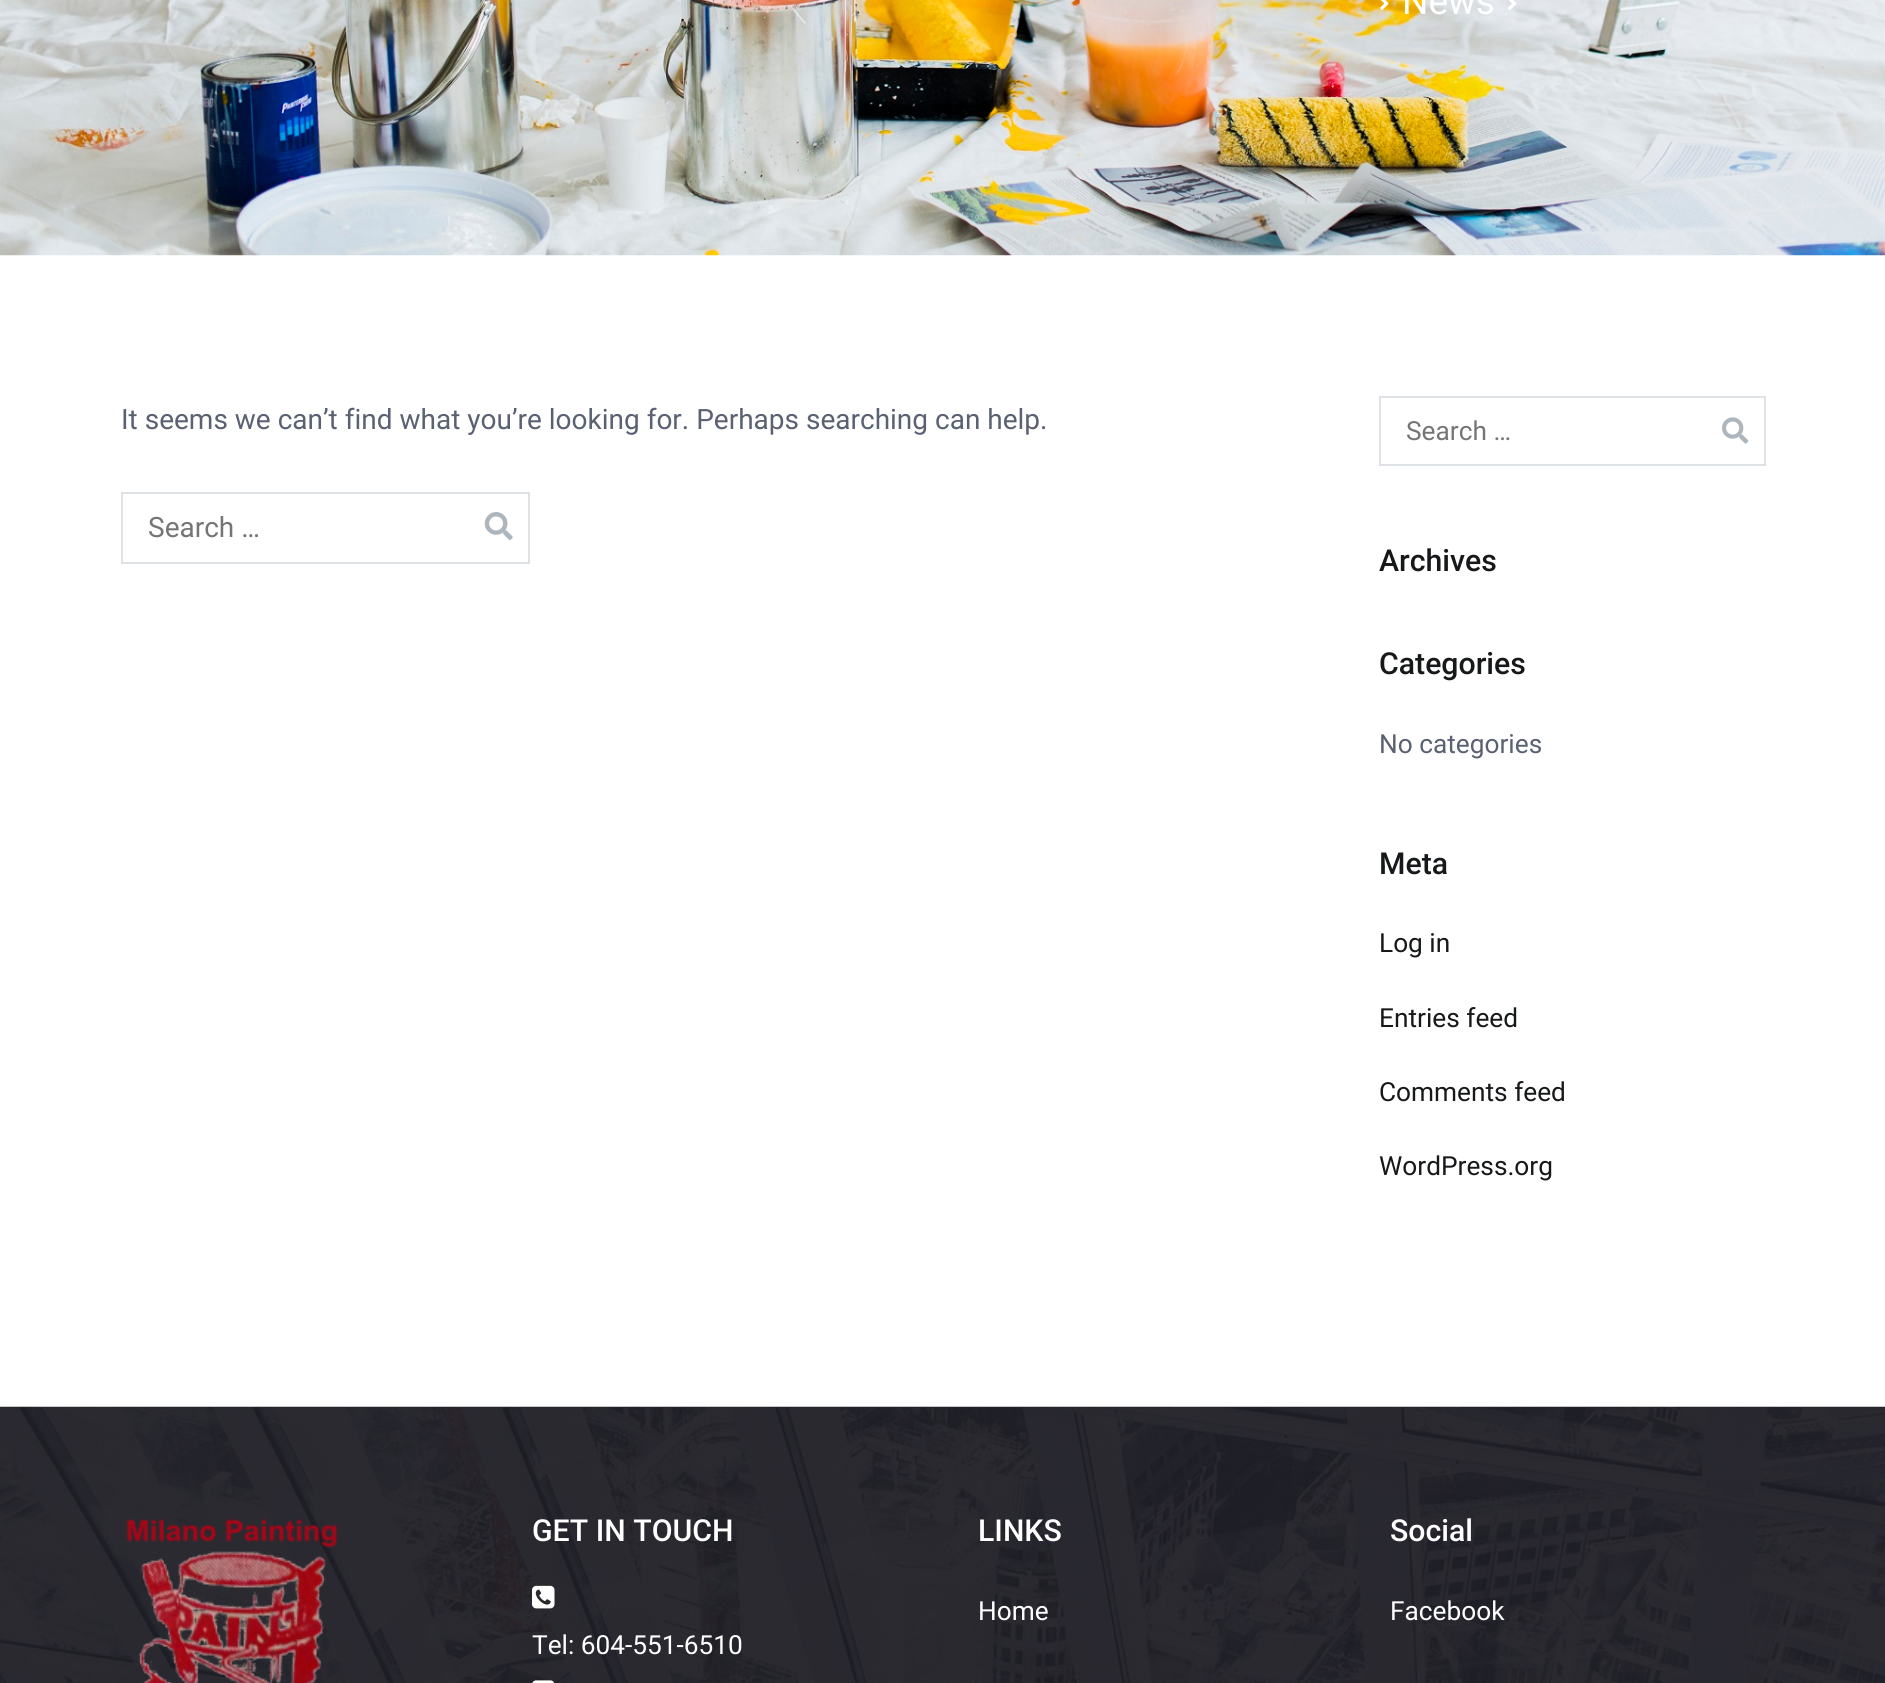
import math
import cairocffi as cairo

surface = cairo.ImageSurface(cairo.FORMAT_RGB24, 1885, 1683)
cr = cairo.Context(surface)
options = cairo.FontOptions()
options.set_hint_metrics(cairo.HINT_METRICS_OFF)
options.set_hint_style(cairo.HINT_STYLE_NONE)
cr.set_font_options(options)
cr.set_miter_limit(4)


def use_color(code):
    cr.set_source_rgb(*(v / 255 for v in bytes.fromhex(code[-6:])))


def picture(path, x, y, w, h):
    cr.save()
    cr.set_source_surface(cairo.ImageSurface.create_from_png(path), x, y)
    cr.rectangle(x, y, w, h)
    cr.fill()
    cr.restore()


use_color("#ffffff")
cr.paint()
picture("img1.png", 0, 0, 1885, 256)
picture("img2.png", 1380, 0, 9, 10)
cr.select_font_face("Roboto")
cr.set_font_size(37)
use_color("#ffffff")
cr.move_to(1402, 14)
cr.show_text("News")
picture("img3.png", 1508, 0, 9, 10)
cr.set_font_size(28)
use_color("#596172")
cr.move_to(121, 429)
cr.show_text("It seems we can’t find what you’re looking for. Perhaps searching can help.")
cr.rectangle(122, 493, 407, 70)
use_color("#dee2e6")
cr.stroke()
use_color("#757575")
cr.move_to(148, 537)
cr.show_text("Search …")
picture("img4.png", 484, 512, 29, 28)
cr.rectangle(1380, 397, 385, 68)
use_color("#dee2e6")
cr.stroke()
cr.set_font_size(26.25)
use_color("#757575")
cr.move_to(1406, 440)
cr.show_text("Search …")
picture("img5.png", 1722, 417, 27, 27)
cr.select_font_face("Roboto Medium")
cr.set_font_size(30.25)
use_color("#16181a")
cr.move_to(1379, 571)
cr.show_text("Archives")
cr.move_to(1379, 674)
cr.show_text("Categories")
cr.select_font_face("Roboto")
cr.set_font_size(26.25)
use_color("#596172")
cr.move_to(1379, 753)
cr.show_text("No categories")
cr.select_font_face("Roboto Medium")
cr.set_font_size(30.25)
use_color("#16181a")
cr.move_to(1379, 874)
cr.show_text("Meta")
cr.select_font_face("Roboto")
cr.set_font_size(26.25)
cr.move_to(1379, 952)
cr.show_text("Log in")
cr.move_to(1379, 1027)
cr.show_text("Entries feed")
cr.move_to(1379, 1101)
cr.show_text("Comments feed")
cr.move_to(1379, 1175)
cr.show_text("WordPress.org")
picture("img6.png", 0, 1406, 1885, 277)
picture("img7.png", 126, 1519, 212, 164)
cr.select_font_face("Roboto Medium")
cr.set_font_size(30.25)
use_color("#ffffff")
cr.move_to(532, 1541)
cr.show_text("GET IN TOUCH")
picture("img8.png", 532, 1585, 23, 24)
cr.select_font_face("Roboto")
cr.set_font_size(26.25)
cr.move_to(532, 1654)
cr.show_text("Tel: 604-551-6510")
picture("img9.png", 532, 1680, 23, 3)
cr.select_font_face("Roboto Medium")
cr.set_font_size(30.25)
cr.move_to(978, 1541)
cr.show_text("LINKS")
cr.select_font_face("Roboto")
cr.set_font_size(26.25)
cr.move_to(978, 1620)
cr.show_text("Home")
cr.select_font_face("Roboto Medium")
cr.set_font_size(30.25)
cr.move_to(1390, 1541)
cr.show_text("Social")
cr.select_font_face("Roboto")
cr.set_font_size(26.25)
cr.move_to(1390, 1620)
cr.show_text("Facebook")
surface.write_to_png("result.png")
